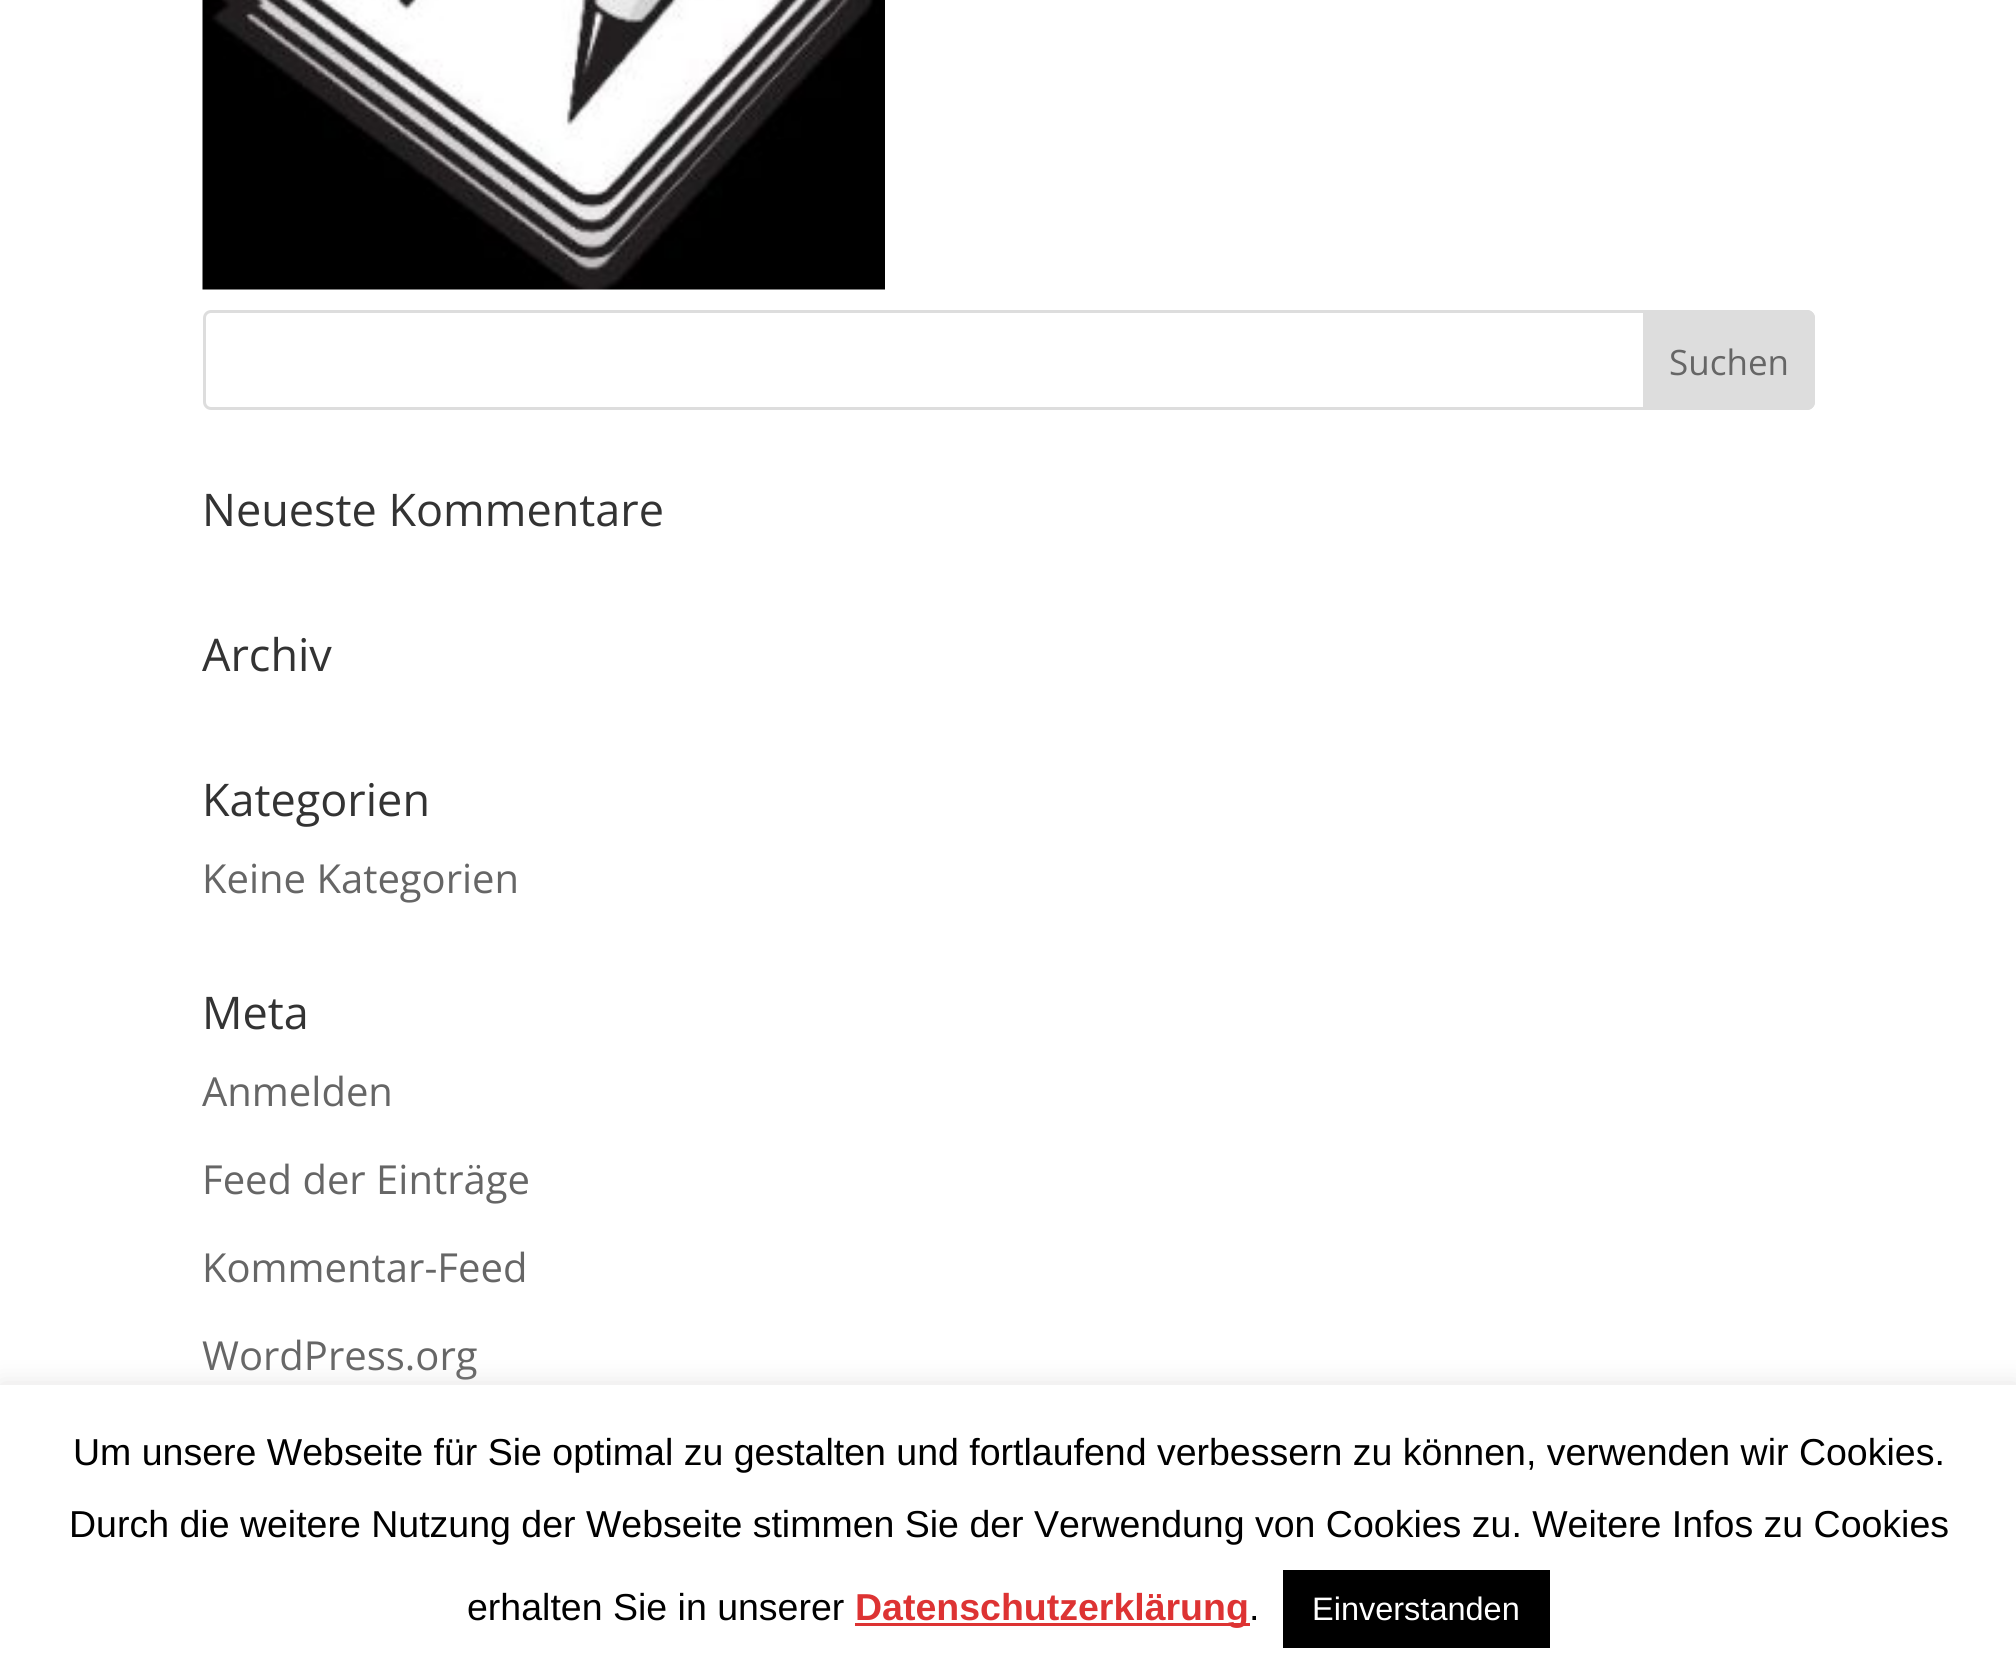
import math
import cairocffi as cairo

surface = cairo.ImageSurface(cairo.FORMAT_RGB24, 2016, 1677)
cr = cairo.Context(surface)
options = cairo.FontOptions()
options.set_hint_metrics(cairo.HINT_METRICS_OFF)
options.set_hint_style(cairo.HINT_STYLE_NONE)
cr.set_font_options(options)
cr.set_miter_limit(4)


def use_color(code):
    cr.set_source_rgb(*(v / 255 for v in bytes.fromhex(code[-6:])))


def round_rect(x, y, w, h, r):
    cr.new_sub_path()
    for i, (u, v) in enumerate([(x + w - r, y + h - r), (x + r, y + h - r), (x + r, y + r), (x + w - r, y + r)]):
        cr.arc(u, v, r, i * math.pi / 2, (i + 1) * math.pi / 2)
    cr.close_path()


def shadow(x, y, w, h, r, blur, alpha):
    cr.push_group_with_content(cairo.CONTENT_ALPHA)
    cr.set_operator(cairo.OPERATOR_SOURCE)
    for i in range(15, -16, -2):
        e = blur * i / 6
        if min(w, h) + 2 * e > 0:
            cr.set_source_rgba(0, 0, 0, alpha * math.erfc((i - 1) / 8.5) / 2)
            round_rect(x - e, y - e, w + 2 * e, h + 2 * e, max(0, min(r + e + blur * .6, min(w, h) / 2 + e)))
            cr.fill()
    cr.mask(cr.pop_group())


def picture(path, x, y, w, h):
    cr.save()
    cr.set_source_surface(cairo.ImageSurface.create_from_png(path), x, y)
    cr.rectangle(x, y, w, h)
    cr.fill()
    cr.restore()


use_color("#ffffff")
cr.paint()
picture("img1.png", 202, 0, 683, 290)
round_rect(204.5, 311.5, 1609, 97, 6.5)
use_color("#dddddd")
cr.set_line_width(3)
cr.stroke()
cr.new_path()
cr.move_to(1644.5, 311.5)
cr.line_to(1807, 311.5)
cr.curve_to(1810.5, 311.5, 1813.5, 314.5, 1813.5, 318)
cr.line_to(1813.5, 402)
cr.curve_to(1813.5, 405.5, 1810.5, 408.5, 1807, 408.5)
cr.line_to(1644.5, 408.5)
cr.close_path()
cr.fill_preserve()
cr.stroke()
cr.select_font_face("Open Sans")
cr.set_font_size(35)
use_color("#666666")
cr.move_to(1669, 375)
cr.show_text("Suchen")
cr.set_font_size(45)
use_color("#333333")
cr.move_to(202, 526)
cr.show_text("Neueste Kommentare")
cr.move_to(202, 671)
cr.show_text("Archiv")
cr.move_to(202, 816)
cr.show_text("Kategorien")
cr.set_font_size(40)
use_color("#666666")
cr.move_to(202, 893)
cr.show_text("Keine Kategorien")
cr.set_font_size(45)
use_color("#333333")
cr.move_to(202, 1029)
cr.show_text("Meta")
cr.set_font_size(40)
use_color("#666666")
cr.move_to(202, 1106)
cr.show_text("Anmelden")
cr.move_to(202, 1194)
cr.show_text("Feed der Einträge")
cr.move_to(202, 1282)
cr.show_text("Kommentar-Feed")
cr.move_to(202, 1370)
cr.show_text("WordPress.org")
use_color("#acabab")
shadow(0, 1383, 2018, 292, 0, 12.5, 0.3)
use_color("#ffffff")
cr.rectangle(0, 1385, 2016, 292)
cr.fill()
cr.select_font_face("Liberation Sans")
cr.set_font_size(37.5)
use_color("#000000")
cr.move_to(73, 1465)
cr.show_text("Um unsere Webseite für Sie optimal zu gestalten und fortlaufend verbessern zu können, verwenden wir Cookies.")
cr.move_to(69, 1537)
cr.show_text("Durch die weitere Nutzung der Webseite stimmen Sie der Verwendung von Cookies zu. Weitere Infos zu Cookies")
cr.move_to(467, 1620)
cr.show_text("erhalten Sie in unserer")
use_color("#dd3333")
cr.rectangle(855, 1623, 395, 3)
cr.fill()
cr.select_font_face("Liberation Sans", cairo.FONT_SLANT_NORMAL, cairo.FONT_WEIGHT_BOLD)
cr.move_to(855, 1620)
cr.show_text("Datenschutzerklärung")
cr.select_font_face("Liberation Sans")
use_color("#000000")
cr.move_to(1249, 1620)
cr.show_text(".")
cr.rectangle(1283, 1570, 267, 78)
cr.fill()
cr.set_font_size(32.5)
use_color("#ffffff")
cr.move_to(1312, 1620)
cr.show_text("Einverstanden")
surface.write_to_png("result.png")
